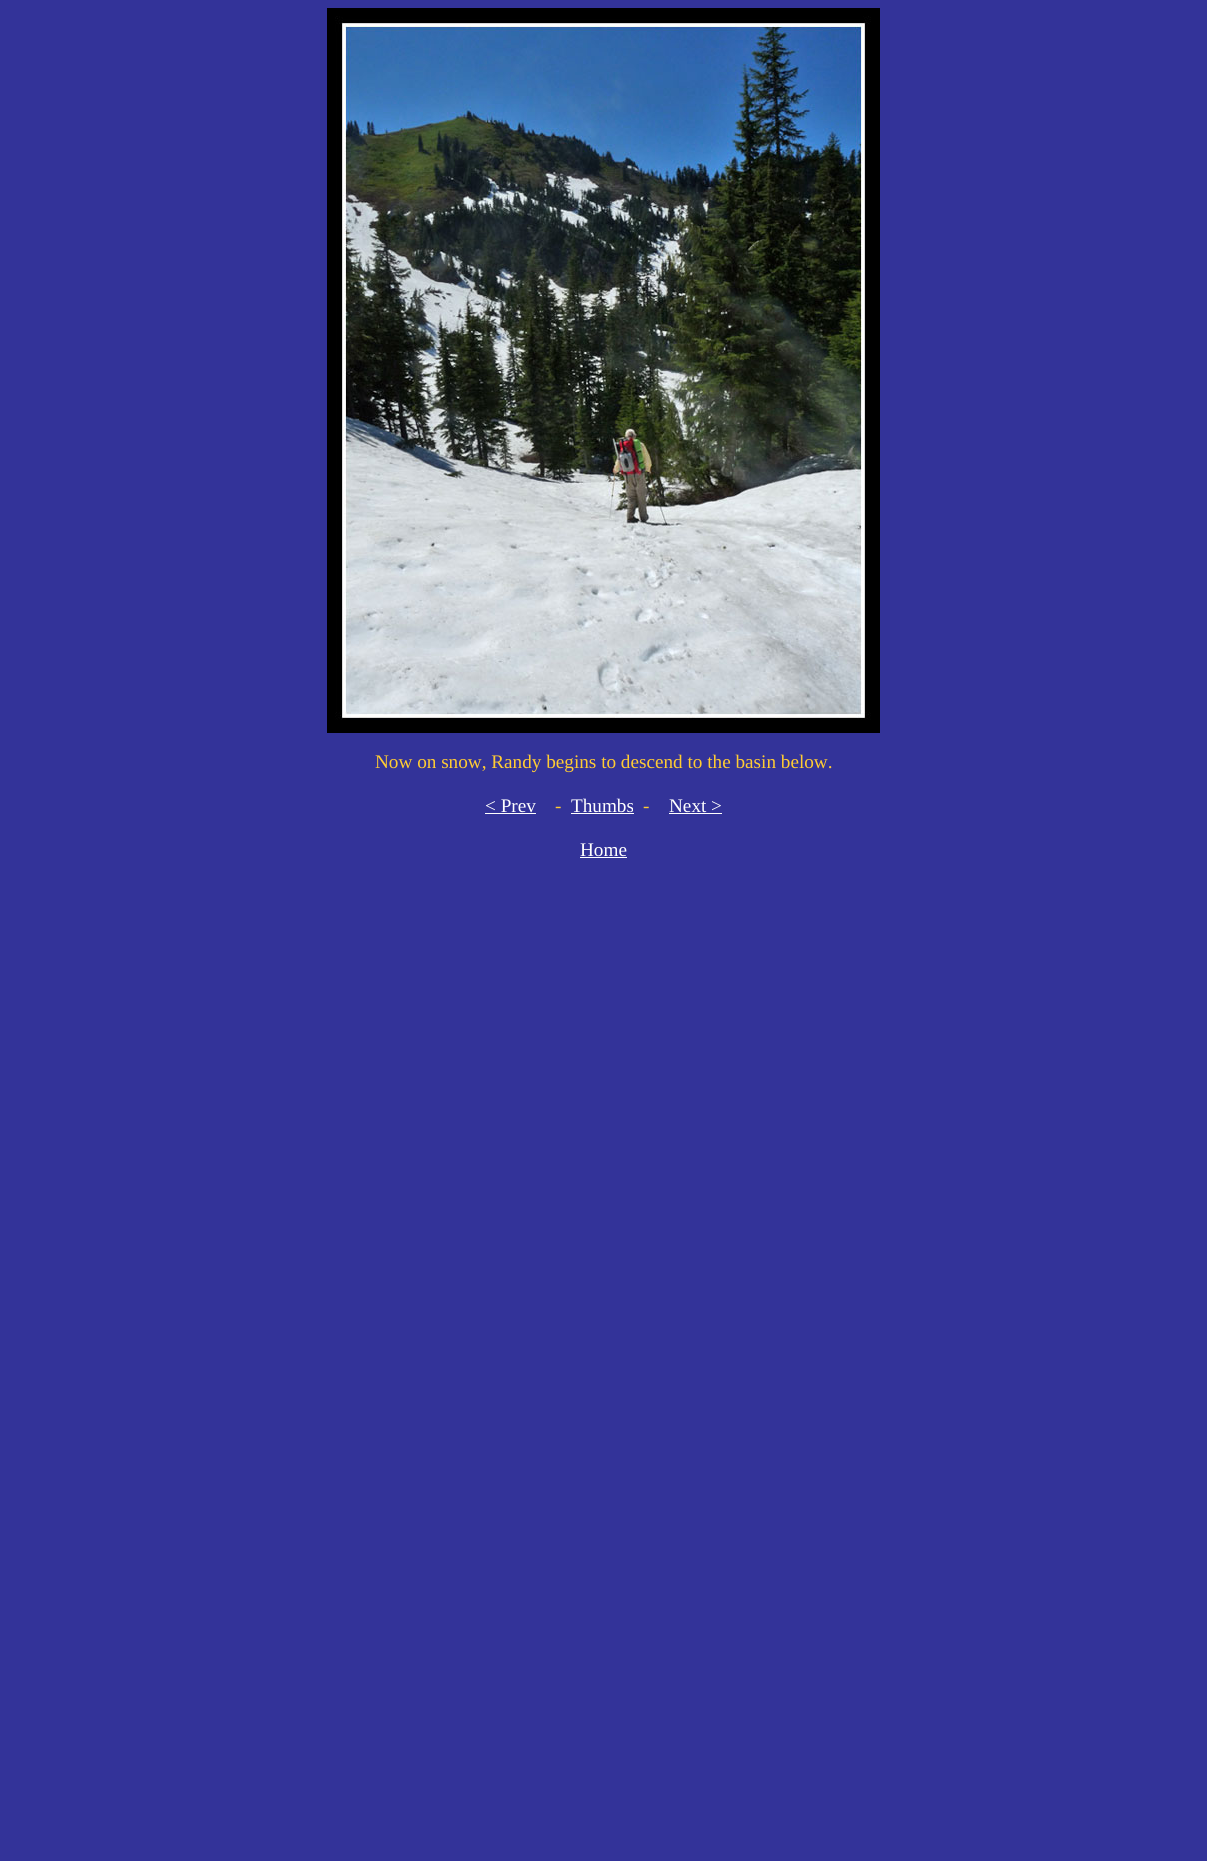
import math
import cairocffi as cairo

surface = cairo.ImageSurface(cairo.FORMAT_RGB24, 1207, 1861)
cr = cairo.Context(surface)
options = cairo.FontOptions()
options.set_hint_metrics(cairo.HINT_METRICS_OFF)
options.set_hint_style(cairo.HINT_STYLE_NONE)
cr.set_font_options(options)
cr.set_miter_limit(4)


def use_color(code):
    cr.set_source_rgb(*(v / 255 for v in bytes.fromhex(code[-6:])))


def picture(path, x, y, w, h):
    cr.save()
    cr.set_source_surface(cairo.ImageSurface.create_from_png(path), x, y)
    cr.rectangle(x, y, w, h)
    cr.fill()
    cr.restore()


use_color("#333399")
cr.paint()
picture("img1.png", 327, 8, 553, 725)
cr.select_font_face("Liberation Serif")
cr.set_font_size(19.2)
use_color("#ffcc33")
cr.move_to(375, 768)
cr.show_text("Now on snow, Randy begins to descend to the basin below.")
use_color("#ffffff")
cr.move_to(485, 812)
cr.show_text("< Prev")
cr.rectangle(485, 813, 51, 1)
cr.fill()
use_color("#ffcc33")
cr.move_to(555, 812)
cr.show_text("-")
use_color("#ffffff")
cr.move_to(571, 812)
cr.show_text("Thumbs")
cr.rectangle(571, 813, 63, 1)
cr.fill()
use_color("#ffcc33")
cr.move_to(643, 812)
cr.show_text("-")
use_color("#ffffff")
cr.move_to(669, 812)
cr.show_text("Next >")
cr.rectangle(669, 813, 53, 1)
cr.fill()
cr.move_to(580, 856)
cr.show_text("Home")
cr.rectangle(580, 857, 47, 1)
cr.fill()
surface.write_to_png("result.png")
